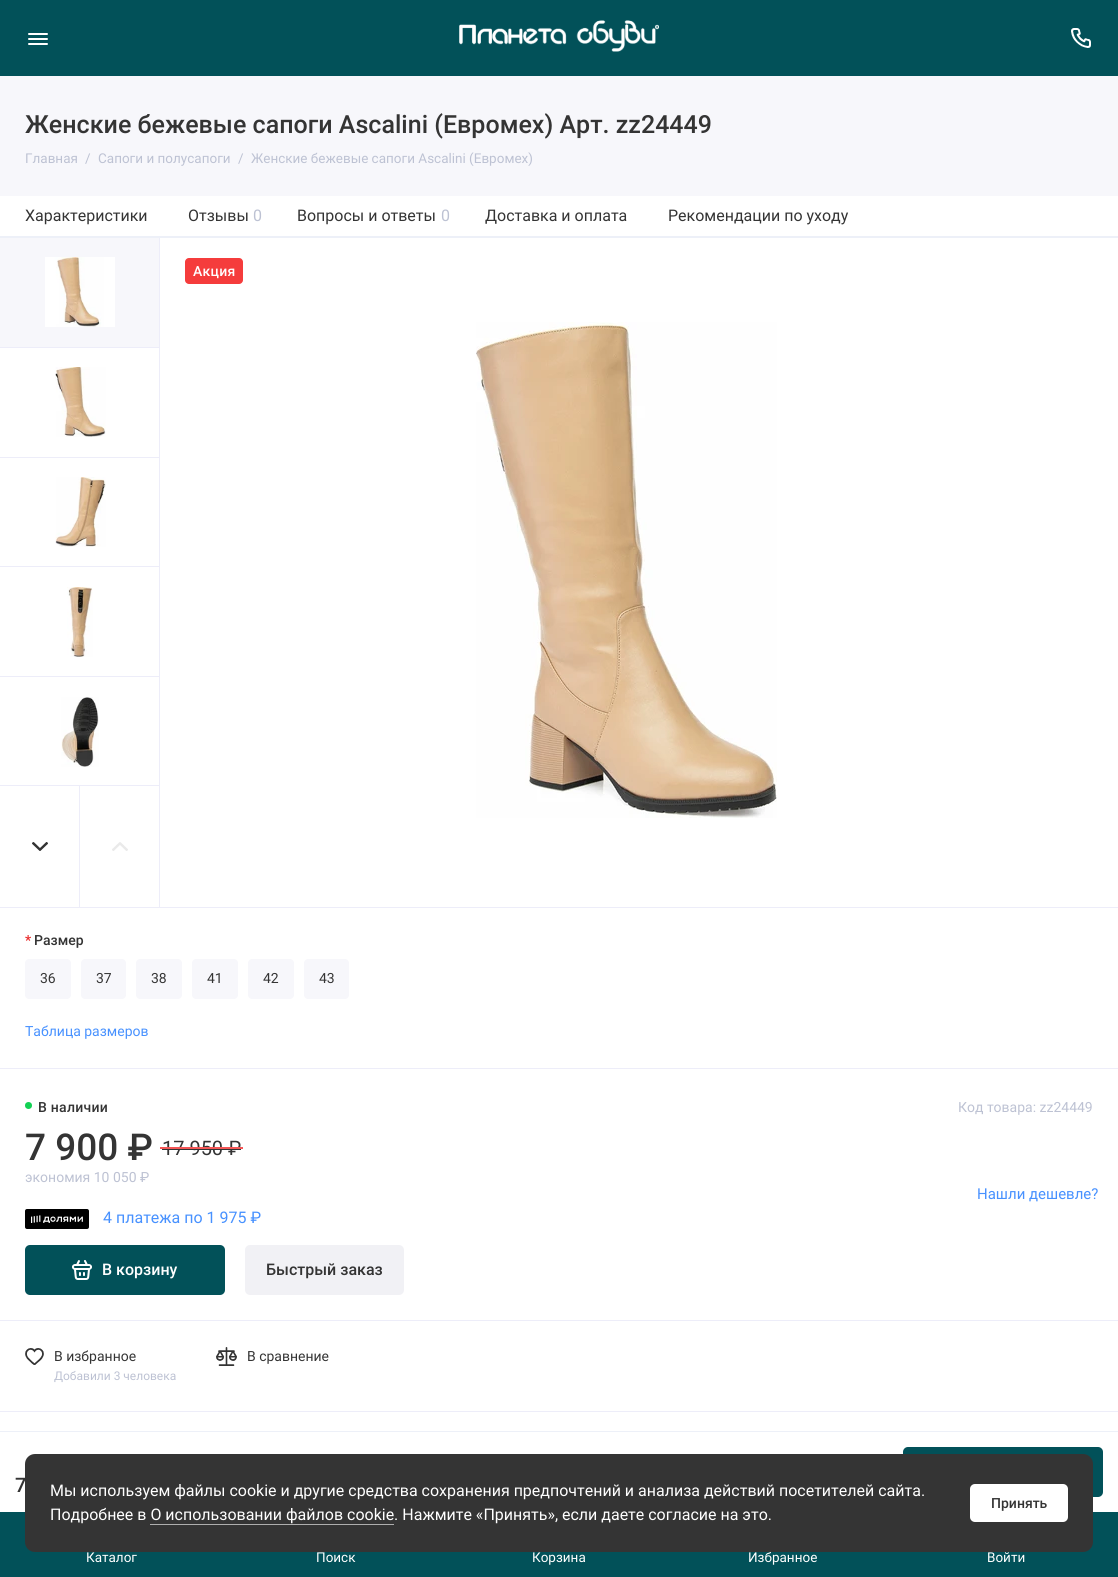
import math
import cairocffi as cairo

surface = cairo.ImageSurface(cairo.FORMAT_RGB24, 1118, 1577)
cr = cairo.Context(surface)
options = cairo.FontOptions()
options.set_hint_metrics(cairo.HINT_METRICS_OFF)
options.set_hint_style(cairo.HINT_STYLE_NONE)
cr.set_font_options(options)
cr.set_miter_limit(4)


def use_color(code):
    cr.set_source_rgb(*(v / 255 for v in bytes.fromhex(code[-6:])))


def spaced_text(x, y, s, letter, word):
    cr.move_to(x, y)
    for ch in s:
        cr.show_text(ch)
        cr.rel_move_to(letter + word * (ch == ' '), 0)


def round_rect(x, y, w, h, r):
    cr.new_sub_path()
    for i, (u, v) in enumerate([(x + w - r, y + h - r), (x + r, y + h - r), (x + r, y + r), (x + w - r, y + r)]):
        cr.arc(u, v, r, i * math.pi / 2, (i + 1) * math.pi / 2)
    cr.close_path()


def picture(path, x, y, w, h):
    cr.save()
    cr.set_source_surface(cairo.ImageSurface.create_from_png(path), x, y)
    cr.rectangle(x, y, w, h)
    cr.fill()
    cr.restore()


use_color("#f7f7fb")
cr.paint()
cr.select_font_face("Roboto Medium")
cr.set_font_size(25)
use_color("#343434")
cr.move_to(25, 133)
cr.show_text("Женские бежевые сапоги Ascalini (Евромех) Арт. zz24449")
cr.select_font_face("Roboto")
cr.set_font_size(13.5)
use_color("#bdc2d3")
cr.move_to(25, 163)
cr.show_text("Главная")
cr.move_to(85, 163)
cr.show_text("/")
cr.move_to(98, 163)
cr.show_text("Сапоги и полусапоги")
cr.move_to(238, 163)
cr.show_text("/")
cr.move_to(251, 163)
cr.show_text("Женские бежевые сапоги Ascalini (Евромех)")
use_color("#ffffff")
cr.rectangle(0, 196, 1118, 40)
cr.fill()
use_color("#edf0f8")
cr.rectangle(0, 236, 1118, 2)
cr.fill()
cr.set_font_size(16)
use_color("#343434")
cr.move_to(25, 221)
cr.show_text("Характеристики")
cr.move_to(188, 221)
cr.show_text("Отзывы")
use_color("#bdc2d3")
cr.move_to(253, 221)
cr.show_text("0")
use_color("#343434")
cr.move_to(297, 221)
cr.show_text("Вопросы и ответы")
use_color("#bdc2d3")
cr.move_to(441, 221)
cr.show_text("0")
use_color("#343434")
cr.move_to(485, 221)
cr.show_text("Доставка и оплата")
cr.move_to(668, 221)
cr.show_text("Рекомендации по уходу")
use_color("#ffffff")
cr.rectangle(0, 1432, 1118, 80)
cr.fill()
use_color("#edf0f8")
cr.rectangle(0, 1431, 1118, 1)
cr.fill()
cr.select_font_face("Roboto Medium")
cr.set_font_size(20)
use_color("#343434")
cr.move_to(15, 1492)
cr.show_text("7")
use_color("#025159")
round_rect(903, 1447, 200, 50, 5)
cr.fill()
use_color("#ffffff")
cr.rectangle(0, 238, 1118, 1193)
cr.fill()
use_color("#ededf9")
cr.rectangle(0, 907, 1118, 1)
cr.fill()
cr.rectangle(159, 238, 1, 547)
cr.fill()
use_color("#f7f7fb")
cr.rectangle(0, 238, 159, 109)
cr.fill()
use_color("#ededf9")
cr.rectangle(0, 347, 159, 1)
cr.fill()
picture("img1.png", 45, 257, 70, 70)
cr.rectangle(0, 457, 159, 1)
cr.fill()
picture("img2.png", 55, 367, 51, 70)
cr.rectangle(0, 566, 159, 1)
cr.fill()
picture("img3.png", 55, 477, 51, 70)
cr.rectangle(0, 676, 159, 1)
cr.fill()
picture("img4.png", 67, 587, 26, 70)
picture("img5.png", 61, 697, 38, 70)
cr.rectangle(0, 785, 160, 1)
cr.fill()
cr.rectangle(79, 786, 1, 121)
cr.fill()
picture("img6.png", 32, 842, 16, 9)
cr.rectangle(159, 786, 1, 121)
cr.fill()
picture("img7.png", 112, 842, 16, 9)
use_color("#f53c3c")
round_rect(185, 258, 58, 26, 4)
cr.fill()
cr.set_font_size(14)
use_color("#ffffff")
spaced_text(193, 276, "Акция", 0.25, 0)
picture("img8.png", 476, 322, 301, 496)
use_color("#ededf9")
cr.rectangle(0, 1068, 1118, 1)
cr.fill()
use_color("#e92c2c")
cr.move_to(25, 945)
cr.show_text("*")
use_color("#343434")
cr.move_to(34, 945)
cr.show_text("Размер")
use_color("#f7f7fb")
round_rect(25, 959, 46, 40, 4)
cr.fill()
cr.select_font_face("Roboto")
use_color("#343434")
cr.move_to(40, 983)
cr.show_text("36")
use_color("#f7f7fb")
round_rect(81, 959, 45, 40, 4)
cr.fill()
use_color("#343434")
cr.move_to(96, 983)
cr.show_text("37")
use_color("#f7f7fb")
round_rect(136, 959, 46, 40, 4)
cr.fill()
use_color("#343434")
cr.move_to(151, 983)
cr.show_text("38")
use_color("#f7f7fb")
round_rect(192, 959, 46, 40, 4)
cr.fill()
use_color("#343434")
cr.move_to(207, 983)
cr.show_text("41")
use_color("#f7f7fb")
round_rect(248, 959, 46, 40, 4)
cr.fill()
use_color("#343434")
cr.move_to(263, 983)
cr.show_text("42")
use_color("#f7f7fb")
round_rect(304, 959, 45, 40, 4)
cr.fill()
use_color("#343434")
cr.move_to(319, 983)
cr.show_text("43")
use_color("#4791ff")
cr.move_to(25, 1036)
cr.show_text("Таблица размеров")
use_color("#ededf9")
cr.rectangle(0, 1320, 1118, 1)
cr.fill()
use_color("#13d154")
cr.arc(28.5, 1105.5, 3.5, 0, 2 * math.pi)
cr.fill()
cr.select_font_face("Roboto Medium")
use_color("#343434")
spaced_text(38, 1112, "В наличии", 0.25, 0)
cr.select_font_face("Roboto")
use_color("#bdc2d3")
cr.move_to(958, 1112)
cr.show_text("Код товара: zz24449")
cr.select_font_face("Roboto Medium")
cr.set_font_size(37)
use_color("#343434")
cr.move_to(25, 1160)
cr.show_text("7 900 ₽")
cr.select_font_face("Roboto")
cr.set_font_size(20)
cr.move_to(162, 1155)
cr.show_text("17 950 ₽")
cr.rectangle(162, 1149, 79, 1)
cr.fill()
use_color("#f45656")
cr.rectangle(160, 1147, 83, 2)
cr.fill()
cr.set_font_size(14)
use_color("#bdc2d3")
cr.move_to(25, 1182)
cr.show_text("экономия 10 050 ₽")
cr.set_font_size(15)
use_color("#4791ff")
cr.move_to(977, 1199)
cr.show_text("Нашли дешевле?")
use_color("#025159")
round_rect(25, 1245, 200, 50, 5)
cr.fill()
picture("img9.png", 72, 1260, 20, 20)
cr.select_font_face("Roboto Medium")
cr.set_font_size(16)
use_color("#ffffff")
cr.move_to(102, 1275)
cr.show_text("В корзину")
use_color("#f1f1f5")
round_rect(245, 1245, 159, 50, 5)
cr.fill()
use_color("#343434")
cr.move_to(266, 1275)
cr.show_text("Быстрый заказ")
picture("img10.png", 25, 1209, 64, 20)
cr.select_font_face("Roboto")
use_color("#4791ff")
cr.move_to(103, 1223)
cr.show_text("4 платежа по 1 975 ₽")
use_color("#ededf9")
cr.rectangle(0, 1411, 1118, 1)
cr.fill()
picture("img11.png", 25, 1348, 19, 17)
cr.set_font_size(14)
use_color("#343434")
cr.move_to(54, 1361)
cr.show_text("В избранное")
cr.set_font_size(12)
use_color("#bdc2d3")
cr.move_to(54, 1380)
cr.show_text("Добавили 3 человека")
picture("img12.png", 216, 1347, 21, 19)
cr.set_font_size(14)
use_color("#343434")
cr.move_to(247, 1361)
cr.show_text("В сравнение")
use_color("#025159")
cr.rectangle(0, 1512, 1118, 65)
cr.fill()
cr.set_font_size(13.5)
use_color("#ffffff")
cr.move_to(748, 1562)
cr.show_text("Избранное")
use_color("#343434")
round_rect(25, 1454, 1068, 98, 10)
cr.fill()
cr.set_font_size(16)
use_color("#ffffff")
cr.move_to(50, 1496)
cr.show_text("Мы используем файлы cookie и другие средства сохранения предпочтений и анализа действий посетителей сайта.")
cr.move_to(50, 1520)
cr.show_text("Подробнее в О использовании файлов cookie. Нажмите «Принять», если даете согласие на это.")
use_color("#aeaeae")
cr.rectangle(150, 1524, 244, 1)
cr.fill()
use_color("#ffffff")
round_rect(970, 1484, 98, 38, 5)
cr.fill()
cr.select_font_face("Roboto Medium")
cr.set_font_size(14)
use_color("#343434")
cr.move_to(991, 1508)
cr.show_text("Принять")
use_color("#025159")
cr.rectangle(0, 0, 1118, 76)
cr.fill()
picture("img13.png", 28, 33, 20, 12)
picture("img14.png", 459, 20, 200, 32)
picture("img15.png", 1071, 28, 20, 20)
cr.select_font_face("Roboto")
cr.set_font_size(13.5)
use_color("#ffffff")
cr.move_to(86, 1562)
cr.show_text("Каталог")
cr.move_to(316, 1562)
cr.show_text("Поиск")
cr.move_to(532, 1562)
cr.show_text("Корзина")
cr.move_to(987, 1562)
cr.show_text("Войти")
surface.write_to_png("result.png")
